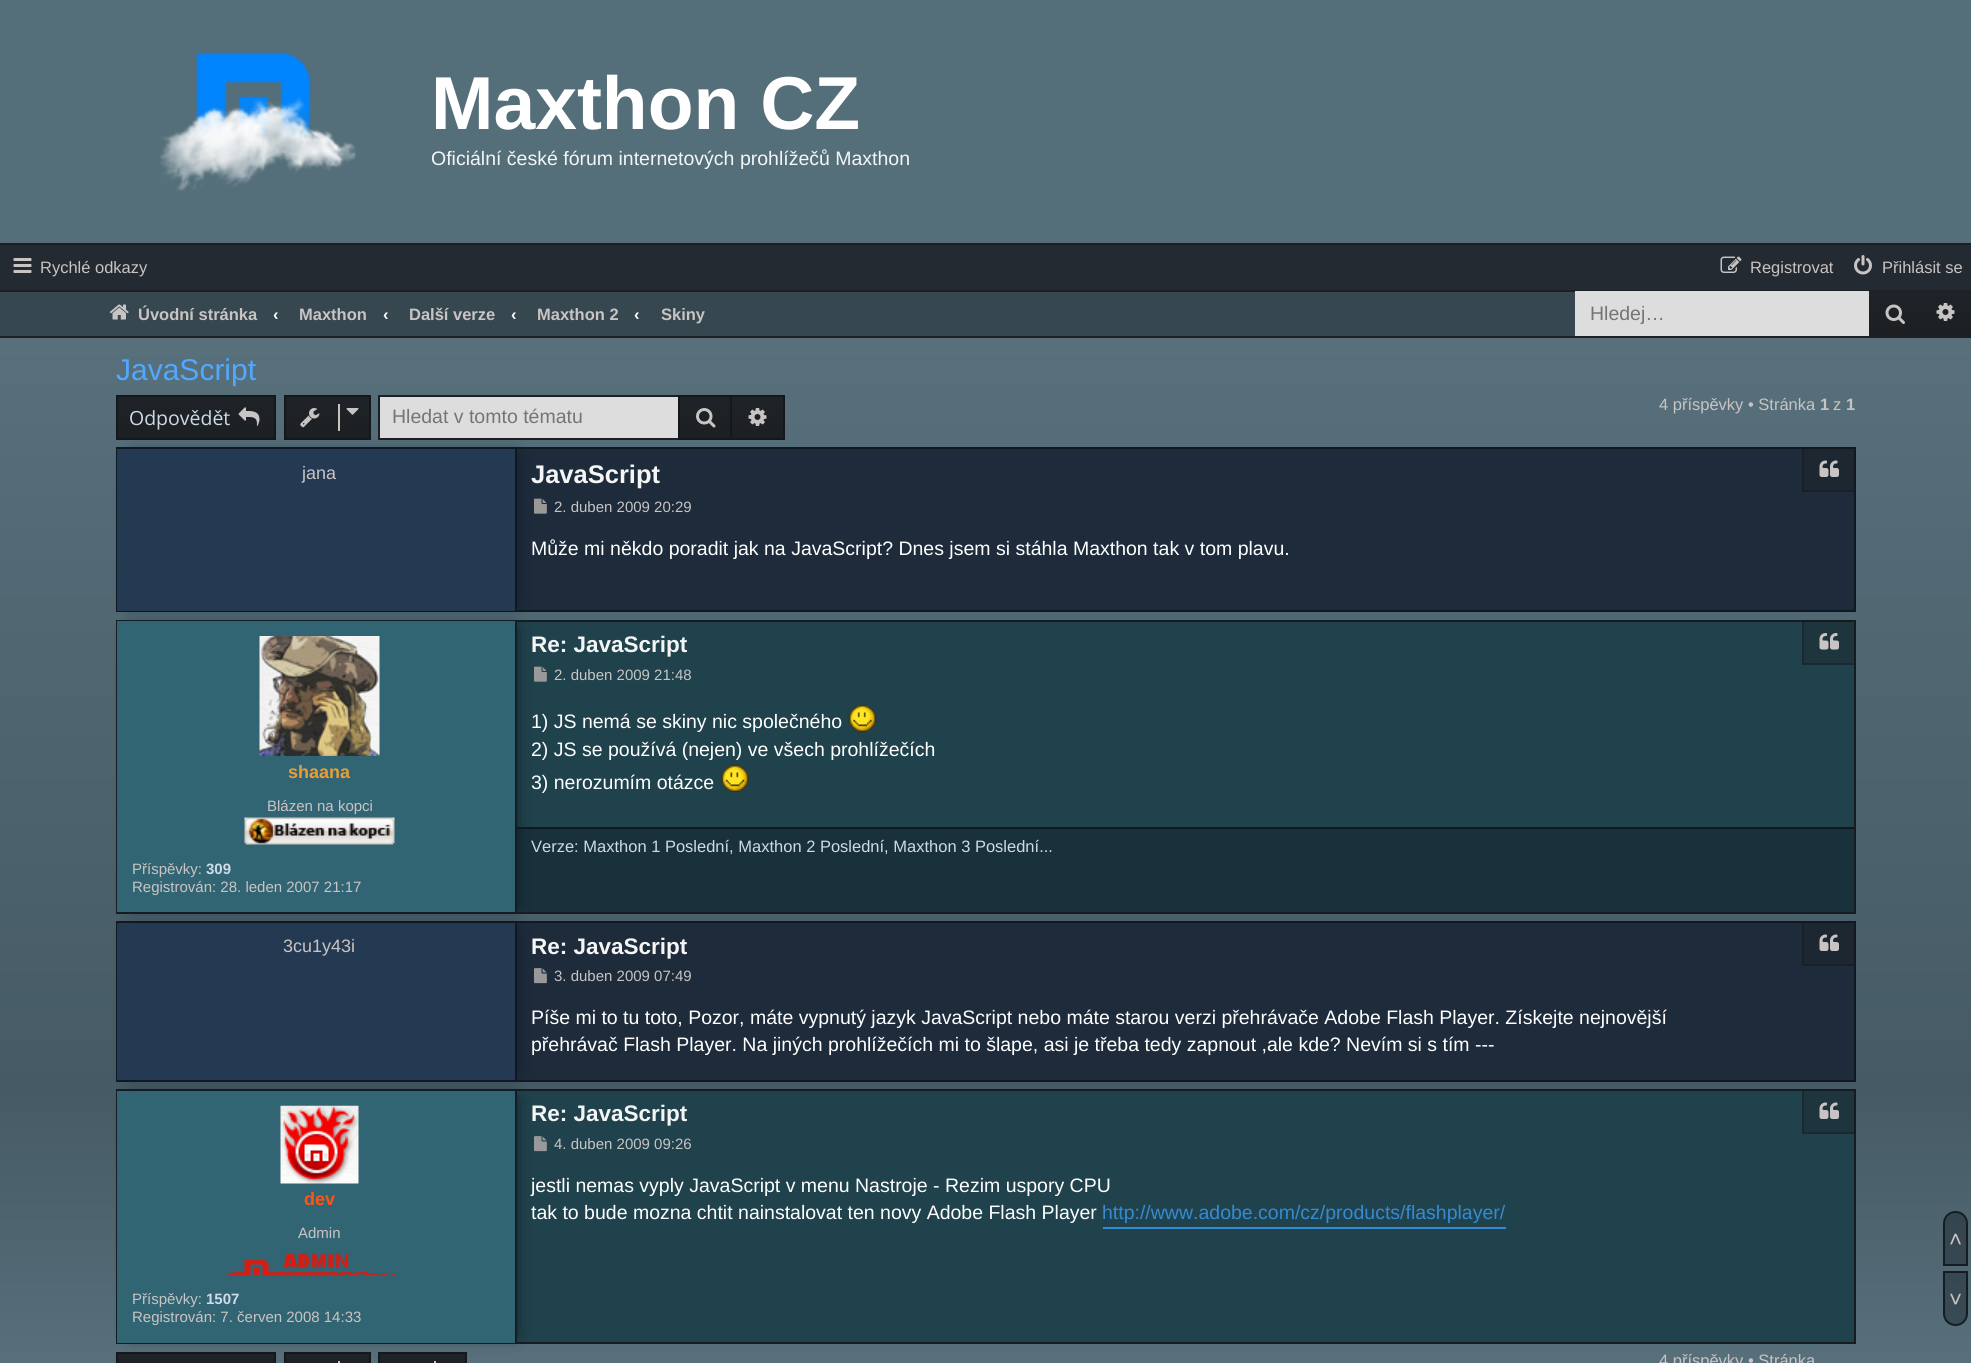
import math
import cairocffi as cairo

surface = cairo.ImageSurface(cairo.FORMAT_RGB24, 1971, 1363)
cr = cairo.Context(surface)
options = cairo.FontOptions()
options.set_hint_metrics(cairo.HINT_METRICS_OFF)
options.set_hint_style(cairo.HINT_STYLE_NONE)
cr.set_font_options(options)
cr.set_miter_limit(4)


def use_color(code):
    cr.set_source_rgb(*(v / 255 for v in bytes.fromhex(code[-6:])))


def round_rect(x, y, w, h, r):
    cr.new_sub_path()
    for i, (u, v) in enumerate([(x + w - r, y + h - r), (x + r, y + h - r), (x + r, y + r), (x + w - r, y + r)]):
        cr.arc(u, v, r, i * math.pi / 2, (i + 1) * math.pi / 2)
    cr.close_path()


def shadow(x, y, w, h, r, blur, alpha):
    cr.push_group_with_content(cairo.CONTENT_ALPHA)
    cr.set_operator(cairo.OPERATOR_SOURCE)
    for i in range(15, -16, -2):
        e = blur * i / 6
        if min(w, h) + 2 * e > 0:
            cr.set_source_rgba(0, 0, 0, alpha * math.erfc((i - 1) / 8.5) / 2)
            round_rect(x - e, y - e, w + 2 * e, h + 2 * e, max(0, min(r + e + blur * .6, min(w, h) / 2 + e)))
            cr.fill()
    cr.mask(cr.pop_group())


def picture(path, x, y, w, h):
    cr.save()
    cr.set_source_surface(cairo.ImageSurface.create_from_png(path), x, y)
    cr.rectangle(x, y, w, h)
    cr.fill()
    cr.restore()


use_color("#ffffff")
cr.paint()
gradient = cairo.LinearGradient(986, 0, 986, 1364)
gradient.add_color_stop_rgba(0.15, 0.376, 0.49, 0.545, 1)
gradient.add_color_stop_rgba(0.25, 0.341, 0.439, 0.482, 1)
gradient.add_color_stop_rgba(0.8, 0.271, 0.353, 0.392, 1)
gradient.add_color_stop_rgba(1, 0.341, 0.439, 0.482, 1)
cr.set_source(gradient)
cr.rectangle(0, 338, 1971, 1025)
cr.fill()
use_color("#546e7a")
cr.rectangle(0, 0, 1971, 243)
cr.fill()
picture("img1.png", 160, 52, 196, 139)
cr.select_font_face("Liberation Sans", cairo.FONT_SLANT_NORMAL, cairo.FONT_WEIGHT_BOLD)
cr.set_font_size(75)
use_color("#ffffff")
cr.move_to(431, 129)
cr.show_text("Maxthon CZ")
cr.select_font_face("Liberation Sans")
cr.set_font_size(19.5)
use_color("#f5f5f5")
cr.move_to(431, 165)
cr.show_text("Oficiální české fórum internetových prohlížečů Maxthon")
use_color("#37474f")
cr.rectangle(0, 292, 1575, 44)
cr.fill()
use_color("#1c2023")
cr.rectangle(0, 243, 1971, 2)
cr.fill()
cr.rectangle(0, 336, 1971, 2)
cr.fill()
use_color("#232a31")
cr.rectangle(0, 245, 1971, 45)
cr.fill()
use_color("#1c2023")
cr.rectangle(0, 290, 1971, 2)
cr.fill()
picture("img2.png", 13, 258, 19, 15)
cr.set_font_size(16.5)
use_color("#c9c4c4")
cr.move_to(40, 273)
cr.show_text("Rychlé odkazy")
picture("img3.png", 1720, 256, 22, 17)
cr.move_to(1750, 273)
cr.show_text("Registrovat")
picture("img4.png", 1854, 255, 18, 20)
cr.move_to(1882, 273)
cr.show_text("Přihlásit se")
picture("img5.png", 109, 304, 20, 16)
cr.select_font_face("Liberation Sans", cairo.FONT_SLANT_NORMAL, cairo.FONT_WEIGHT_BOLD)
cr.move_to(138, 320)
cr.show_text("Úvodní stránka")
use_color("#ffffff")
cr.move_to(273, 320)
cr.show_text("‹")
use_color("#c9c4c4")
cr.move_to(299, 320)
cr.show_text("Maxthon")
use_color("#ffffff")
cr.move_to(383, 320)
cr.show_text("‹")
use_color("#c9c4c4")
cr.move_to(409, 320)
cr.show_text("Další verze")
use_color("#ffffff")
cr.move_to(511, 320)
cr.show_text("‹")
use_color("#c9c4c4")
cr.move_to(537, 320)
cr.show_text("Maxthon 2")
use_color("#ffffff")
cr.move_to(634, 320)
cr.show_text("‹")
use_color("#c9c4c4")
cr.move_to(661, 320)
cr.show_text("Skiny")
use_color("#dddddd")
cr.rectangle(1575, 291, 294, 45)
cr.fill()
cr.select_font_face("Liberation Sans")
cr.set_font_size(19.5)
use_color("#757575")
cr.move_to(1590, 320)
cr.show_text("Hledej…")
gradient = cairo.LinearGradient(1895, 291, 1895, 336)
gradient.add_color_stop_rgba(0, 0.118, 0.137, 0.153, 1)
gradient.add_color_stop_rgba(1, 0.11, 0.125, 0.137, 1)
cr.set_source(gradient)
cr.rectangle(1869, 291, 51, 45)
cr.fill()
picture("img6.png", 1885, 304, 20, 20)
gradient = cairo.LinearGradient(1946, 291, 1946, 336)
gradient.add_color_stop_rgba(0, 0.118, 0.137, 0.153, 1)
gradient.add_color_stop_rgba(1, 0.11, 0.125, 0.137, 1)
cr.set_source(gradient)
cr.rectangle(1920, 291, 51, 45)
cr.fill()
picture("img7.png", 1936, 303, 19, 18)
cr.set_font_size(30)
use_color("#51a8ff")
cr.move_to(116, 380)
cr.show_text("JavaScript")
gradient = cairo.LinearGradient(327, 396, 327, 438)
gradient.add_color_stop_rgba(0, 0.118, 0.137, 0.153, 1)
gradient.add_color_stop_rgba(1, 0.11, 0.125, 0.137, 1)
cr.set_source(gradient)
cr.rectangle(286, 397, 83, 41)
cr.fill()
cr.rectangle(285, 396, 85, 43)
use_color("#15181b")
cr.stroke()
picture("img8.png", 300, 408, 20, 20)
use_color("#c7c3bf")
cr.rectangle(338, 404, 2, 27)
cr.fill()
picture("img9.png", 346, 408, 13, 7)
cr.set_font_size(16.5)
use_color("#c9c4c4")
cr.move_to(1659, 410)
cr.show_text("4 příspěvky • Stránka")
cr.select_font_face("Liberation Sans", cairo.FONT_SLANT_NORMAL, cairo.FONT_WEIGHT_BOLD)
cr.move_to(1820, 410)
cr.show_text("1")
cr.select_font_face("Liberation Sans")
cr.move_to(1833, 410)
cr.show_text("z")
cr.select_font_face("Liberation Sans", cairo.FONT_SLANT_NORMAL, cairo.FONT_WEIGHT_BOLD)
cr.move_to(1846, 410)
cr.show_text("1")
gradient = cairo.LinearGradient(196, 396, 196, 438)
gradient.add_color_stop_rgba(0, 0.118, 0.137, 0.153, 1)
gradient.add_color_stop_rgba(1, 0.11, 0.125, 0.137, 1)
cr.set_source(gradient)
cr.rectangle(118, 397, 156, 41)
cr.fill()
cr.rectangle(117, 396, 158, 43)
use_color("#15181b")
cr.stroke()
cr.select_font_face("Open Sans")
cr.set_font_size(19.5)
use_color("#cedbe7")
cr.move_to(129, 425)
cr.show_text("Odpovědět")
picture("img10.png", 238, 407, 22, 19)
use_color("#dddddd")
cr.rectangle(380, 397, 298, 41)
cr.fill()
use_color("#1c2023")
cr.rectangle(378, 395, 300, 2)
cr.fill()
cr.rectangle(378, 438, 300, 2)
cr.fill()
cr.rectangle(378, 395, 2, 45)
cr.fill()
cr.select_font_face("Liberation Sans")
use_color("#757575")
cr.move_to(392, 423)
cr.show_text("Hledat v tomto tématu")
gradient = cairo.LinearGradient(705, 396, 705, 438)
gradient.add_color_stop_rgba(0, 0.118, 0.137, 0.153, 1)
gradient.add_color_stop_rgba(1, 0.11, 0.125, 0.137, 1)
cr.set_source(gradient)
cr.rectangle(680, 397, 50, 41)
cr.fill()
cr.rectangle(679, 396, 52, 43)
use_color("#15181b")
cr.stroke()
picture("img11.png", 696, 408, 20, 20)
gradient = cairo.LinearGradient(758, 396, 758, 438)
gradient.add_color_stop_rgba(0, 0.118, 0.137, 0.153, 1)
gradient.add_color_stop_rgba(1, 0.11, 0.125, 0.137, 1)
cr.set_source(gradient)
cr.rectangle(732, 397, 51, 41)
cr.fill()
use_color("#15181b")
cr.rectangle(732, 395, 53, 2)
cr.fill()
cr.rectangle(783, 395, 2, 45)
cr.fill()
cr.rectangle(732, 438, 53, 2)
cr.fill()
picture("img12.png", 748, 408, 19, 18)
use_color("#1d2b3b")
cr.rectangle(517, 449, 1337, 161)
cr.fill()
cr.rectangle(117, 448, 1738, 163)
use_color("#101821")
cr.stroke()
use_color("#101821")
shadow(131, 456, 384, 147, 0, 7.5, 1)
use_color("#233a52")
cr.rectangle(117, 449, 398, 162)
cr.fill()
use_color("#101821")
cr.rectangle(515, 449, 2, 162)
cr.fill()
cr.set_font_size(18)
use_color("#c9c4c4")
cr.move_to(302, 479)
cr.show_text("jana")
cr.select_font_face("Liberation Sans", cairo.FONT_SLANT_NORMAL, cairo.FONT_WEIGHT_BOLD)
cr.set_font_size(25.5)
use_color("#f5f5f5")
cr.move_to(531, 483)
cr.show_text("JavaScript")
cr.set_source_rgba(0.114, 0.133, 0.149, 0.4)
cr.rectangle(1802, 447, 54, 45)
cr.fill()
cr.rectangle(1803, 448, 52, 43)
cr.set_source_rgba(0.082, 0.094, 0.106, 0.4)
cr.stroke()
picture("img13.png", 1819, 460, 20, 17)
picture("img14.png", 534, 498, 13, 16)
cr.select_font_face("Liberation Sans")
cr.set_font_size(15)
use_color("#c9c4c4")
cr.move_to(554, 512)
cr.show_text("2. duben 2009 20:29")
cr.set_font_size(19.5)
use_color("#ffffff")
cr.move_to(531, 555)
cr.show_text("Může mi někdo poradit jak na JavaScript? Dnes jsem si stáhla Maxthon tak v tom plavu.")
use_color("#1f424c")
cr.rectangle(517, 622, 1337, 290)
cr.fill()
cr.rectangle(117, 621, 1738, 292)
use_color("#151d23")
cr.stroke()
use_color("#101821")
shadow(131, 629, 384, 276, 0, 7.5, 1)
use_color("#326573")
cr.rectangle(117, 621, 398, 291)
cr.fill()
use_color("#151d23")
cr.rectangle(515, 621, 2, 291)
cr.fill()
picture("img15.png", 259, 636, 121, 120)
cr.select_font_face("Liberation Sans", cairo.FONT_SLANT_NORMAL, cairo.FONT_WEIGHT_BOLD)
cr.set_font_size(18)
use_color("#e89e38")
cr.move_to(288, 778)
cr.show_text("shaana")
cr.select_font_face("Liberation Sans")
cr.set_font_size(15)
use_color("#c9c4c4")
cr.move_to(267, 811)
cr.show_text("Blázen na kopci")
picture("img16.png", 244, 817, 151, 28)
cr.move_to(132, 874)
cr.show_text("Příspěvky:")
cr.select_font_face("Liberation Sans", cairo.FONT_SLANT_NORMAL, cairo.FONT_WEIGHT_BOLD)
use_color("#cedbe7")
cr.move_to(206, 874)
cr.show_text("309")
cr.select_font_face("Liberation Sans")
use_color("#c9c4c4")
cr.move_to(132, 892)
cr.show_text("Registrován: 28. leden 2007 21:17")
cr.select_font_face("Liberation Sans", cairo.FONT_SLANT_NORMAL, cairo.FONT_WEIGHT_BOLD)
cr.set_font_size(22.5)
use_color("#f5f5f5")
cr.move_to(531, 652)
cr.show_text("Re: JavaScript")
cr.set_source_rgba(0.114, 0.133, 0.149, 0.4)
cr.rectangle(1802, 620, 54, 45)
cr.fill()
cr.rectangle(1803, 621, 52, 43)
cr.set_source_rgba(0.082, 0.094, 0.106, 0.4)
cr.stroke()
picture("img17.png", 1819, 633, 20, 17)
picture("img18.png", 534, 666, 13, 16)
cr.select_font_face("Liberation Sans")
cr.set_font_size(15)
use_color("#c9c4c4")
cr.move_to(554, 680)
cr.show_text("2. duben 2009 21:48")
cr.set_font_size(19.5)
use_color("#ffffff")
cr.move_to(531, 728)
cr.show_text("1) JS nemá se skiny nic společného")
picture("img19.png", 848, 704, 29, 29)
cr.move_to(531, 756)
cr.show_text("2) JS se používá (nejen) ve všech prohlížečích")
cr.move_to(531, 789)
cr.show_text("3) nerozumím otázce")
picture("img20.png", 721, 764, 28, 29)
cr.set_source_rgba(0.063, 0.094, 0.129, 0.4)
cr.rectangle(517, 829, 1337, 83)
cr.fill()
use_color("#101821")
cr.rectangle(516, 827, 1338, 2)
cr.fill()
cr.set_font_size(16.5)
use_color("#cedbe7")
cr.move_to(531, 852)
cr.show_text("Verze: Maxthon 1 Poslední, Maxthon 2 Poslední, Maxthon 3 Poslední...")
use_color("#1d2b3b")
cr.rectangle(517, 923, 1337, 157)
cr.fill()
cr.rectangle(117, 922, 1738, 159)
use_color("#101821")
cr.stroke()
use_color("#101821")
shadow(131, 930, 384, 143, 0, 7.5, 1)
use_color("#233a52")
cr.rectangle(117, 923, 398, 157)
cr.fill()
use_color("#101821")
cr.rectangle(515, 923, 2, 157)
cr.fill()
cr.set_font_size(18)
use_color("#c9c4c4")
cr.move_to(283, 952)
cr.show_text("3cu1y43i")
cr.select_font_face("Liberation Sans", cairo.FONT_SLANT_NORMAL, cairo.FONT_WEIGHT_BOLD)
cr.set_font_size(22.5)
use_color("#f5f5f5")
cr.move_to(531, 954)
cr.show_text("Re: JavaScript")
cr.set_source_rgba(0.114, 0.133, 0.149, 0.4)
cr.rectangle(1802, 921, 54, 45)
cr.fill()
cr.rectangle(1803, 922, 52, 43)
cr.set_source_rgba(0.082, 0.094, 0.106, 0.4)
cr.stroke()
picture("img13.png", 1819, 934, 20, 17)
picture("img21.png", 534, 968, 13, 16)
cr.select_font_face("Liberation Sans")
cr.set_font_size(15)
use_color("#c9c4c4")
cr.move_to(554, 981)
cr.show_text("3. duben 2009 07:49")
cr.set_font_size(19.5)
use_color("#ffffff")
cr.move_to(531, 1024)
cr.show_text("Píše mi to tu toto, Pozor, máte vypnutý jazyk JavaScript nebo máte starou verzi přehrávače Adobe Flash Player. Získejte nejnovější")
cr.move_to(531, 1051)
cr.show_text("přehrávač Flash Player. Na jiných prohlížečích mi to šlape, asi je třeba tedy zapnout ,ale kde? Nevím si s tím ---")
use_color("#1f424c")
cr.rectangle(517, 1091, 1337, 251)
cr.fill()
cr.rectangle(117, 1090, 1738, 253)
use_color("#151d23")
cr.stroke()
gradient = cairo.LinearGradient(196, 1353, 196, 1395)
gradient.add_color_stop_rgba(0, 0.118, 0.137, 0.153, 1)
gradient.add_color_stop_rgba(1, 0.11, 0.125, 0.137, 1)
cr.set_source(gradient)
cr.rectangle(118, 1354, 156, 9)
cr.fill()
cr.rectangle(117, 1353, 158, 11)
use_color("#15181b")
cr.stroke()
use_color("#101821")
shadow(131, 1098, 384, 237, 0, 7.5, 1)
cr.select_font_face("Liberation Sans", cairo.FONT_SLANT_NORMAL, cairo.FONT_WEIGHT_BOLD)
cr.set_font_size(22.5)
use_color("#f5f5f5")
cr.move_to(531, 1121)
cr.show_text("Re: JavaScript")
cr.set_source_rgba(0.114, 0.133, 0.149, 0.4)
cr.rectangle(1802, 1089, 54, 45)
cr.fill()
cr.rectangle(1803, 1090, 52, 43)
cr.set_source_rgba(0.082, 0.094, 0.106, 0.4)
cr.stroke()
picture("img22.png", 1819, 1102, 20, 17)
picture("img23.png", 534, 1136, 13, 16)
cr.select_font_face("Liberation Sans")
cr.set_font_size(15)
use_color("#c9c4c4")
cr.move_to(554, 1149)
cr.show_text("4. duben 2009 09:26")
cr.set_font_size(19.5)
use_color("#ffffff")
cr.move_to(531, 1192)
cr.show_text("jestli nemas vyply JavaScript v menu Nastroje - Rezim uspory CPU")
cr.move_to(531, 1219)
cr.show_text("tak to bude mozna chtit nainstalovat ten novy Adobe Flash Player")
use_color("#368ad2")
cr.rectangle(1103, 1227, 403, 2)
cr.fill()
cr.move_to(1102, 1219)
cr.show_text("http://www.adobe.com/cz/products/flashplayer/")
use_color("#326573")
cr.rectangle(117, 1091, 398, 252)
cr.fill()
use_color("#151d23")
cr.rectangle(515, 1091, 2, 252)
cr.fill()
picture("img24.png", 280, 1105, 79, 79)
cr.select_font_face("Liberation Sans", cairo.FONT_SLANT_NORMAL, cairo.FONT_WEIGHT_BOLD)
cr.set_font_size(18)
use_color("#ff5416")
cr.move_to(304, 1205)
cr.show_text("dev")
cr.select_font_face("Liberation Sans")
cr.set_font_size(15)
use_color("#c9c4c4")
cr.move_to(298, 1238)
cr.show_text("Admin")
picture("img25.png", 227, 1253, 168, 23)
cr.move_to(132, 1304)
cr.show_text("Příspěvky:")
cr.select_font_face("Liberation Sans", cairo.FONT_SLANT_NORMAL, cairo.FONT_WEIGHT_BOLD)
use_color("#cedbe7")
cr.move_to(206, 1304)
cr.show_text("1507")
cr.select_font_face("Liberation Sans")
use_color("#c9c4c4")
cr.move_to(132, 1322)
cr.show_text("Registrován: 7. červen 2008 14:33")
gradient = cairo.LinearGradient(327, 1353, 327, 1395)
gradient.add_color_stop_rgba(0, 0.118, 0.137, 0.153, 1)
gradient.add_color_stop_rgba(1, 0.11, 0.125, 0.137, 1)
cr.set_source(gradient)
cr.rectangle(286, 1354, 83, 9)
cr.fill()
cr.rectangle(285, 1353, 85, 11)
use_color("#15181b")
cr.stroke()
use_color("#c7c3bf")
cr.rectangle(338, 1361, 2, 2)
cr.fill()
gradient = cairo.LinearGradient(422, 1353, 422, 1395)
gradient.add_color_stop_rgba(0, 0.118, 0.137, 0.153, 1)
gradient.add_color_stop_rgba(1, 0.11, 0.125, 0.137, 1)
cr.set_source(gradient)
cr.rectangle(380, 1354, 85, 9)
cr.fill()
cr.rectangle(379, 1353, 87, 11)
use_color("#15181b")
cr.stroke()
use_color("#c7c3bf")
cr.rectangle(434, 1361, 2, 2)
cr.fill()
cr.set_font_size(16.5)
use_color("#c9c4c4")
cr.move_to(1659, 1366)
cr.show_text("4 příspěvky • Stránka")
cr.set_source_rgba(0.063, 0.094, 0.129, 0.4)
cr.new_path()
cr.move_to(1955.5, 1212)
cr.curve_to(1962, 1212, 1967, 1217, 1967, 1223.5)
cr.line_to(1967, 1265)
cr.line_to(1944, 1265)
cr.line_to(1944, 1223.5)
cr.curve_to(1944, 1217, 1949, 1212, 1955.5, 1212)
cr.close_path()
cr.fill_preserve()
use_color("#151d23")
cr.stroke()
cr.set_font_size(22.5)
use_color("#c9c4c4")
cr.move_to(1949, 1247)
cr.show_text("˄")
cr.set_source_rgba(0.063, 0.094, 0.129, 0.4)
cr.new_path()
cr.move_to(1944, 1272)
cr.line_to(1967, 1272)
cr.line_to(1967, 1313.5)
cr.curve_to(1967, 1320, 1962, 1325, 1955.5, 1325)
cr.curve_to(1949, 1325, 1944, 1320, 1944, 1313.5)
cr.close_path()
cr.fill_preserve()
use_color("#151d23")
cr.stroke()
use_color("#c9c4c4")
cr.move_to(1949, 1307)
cr.show_text("˅")
surface.write_to_png("result.png")
